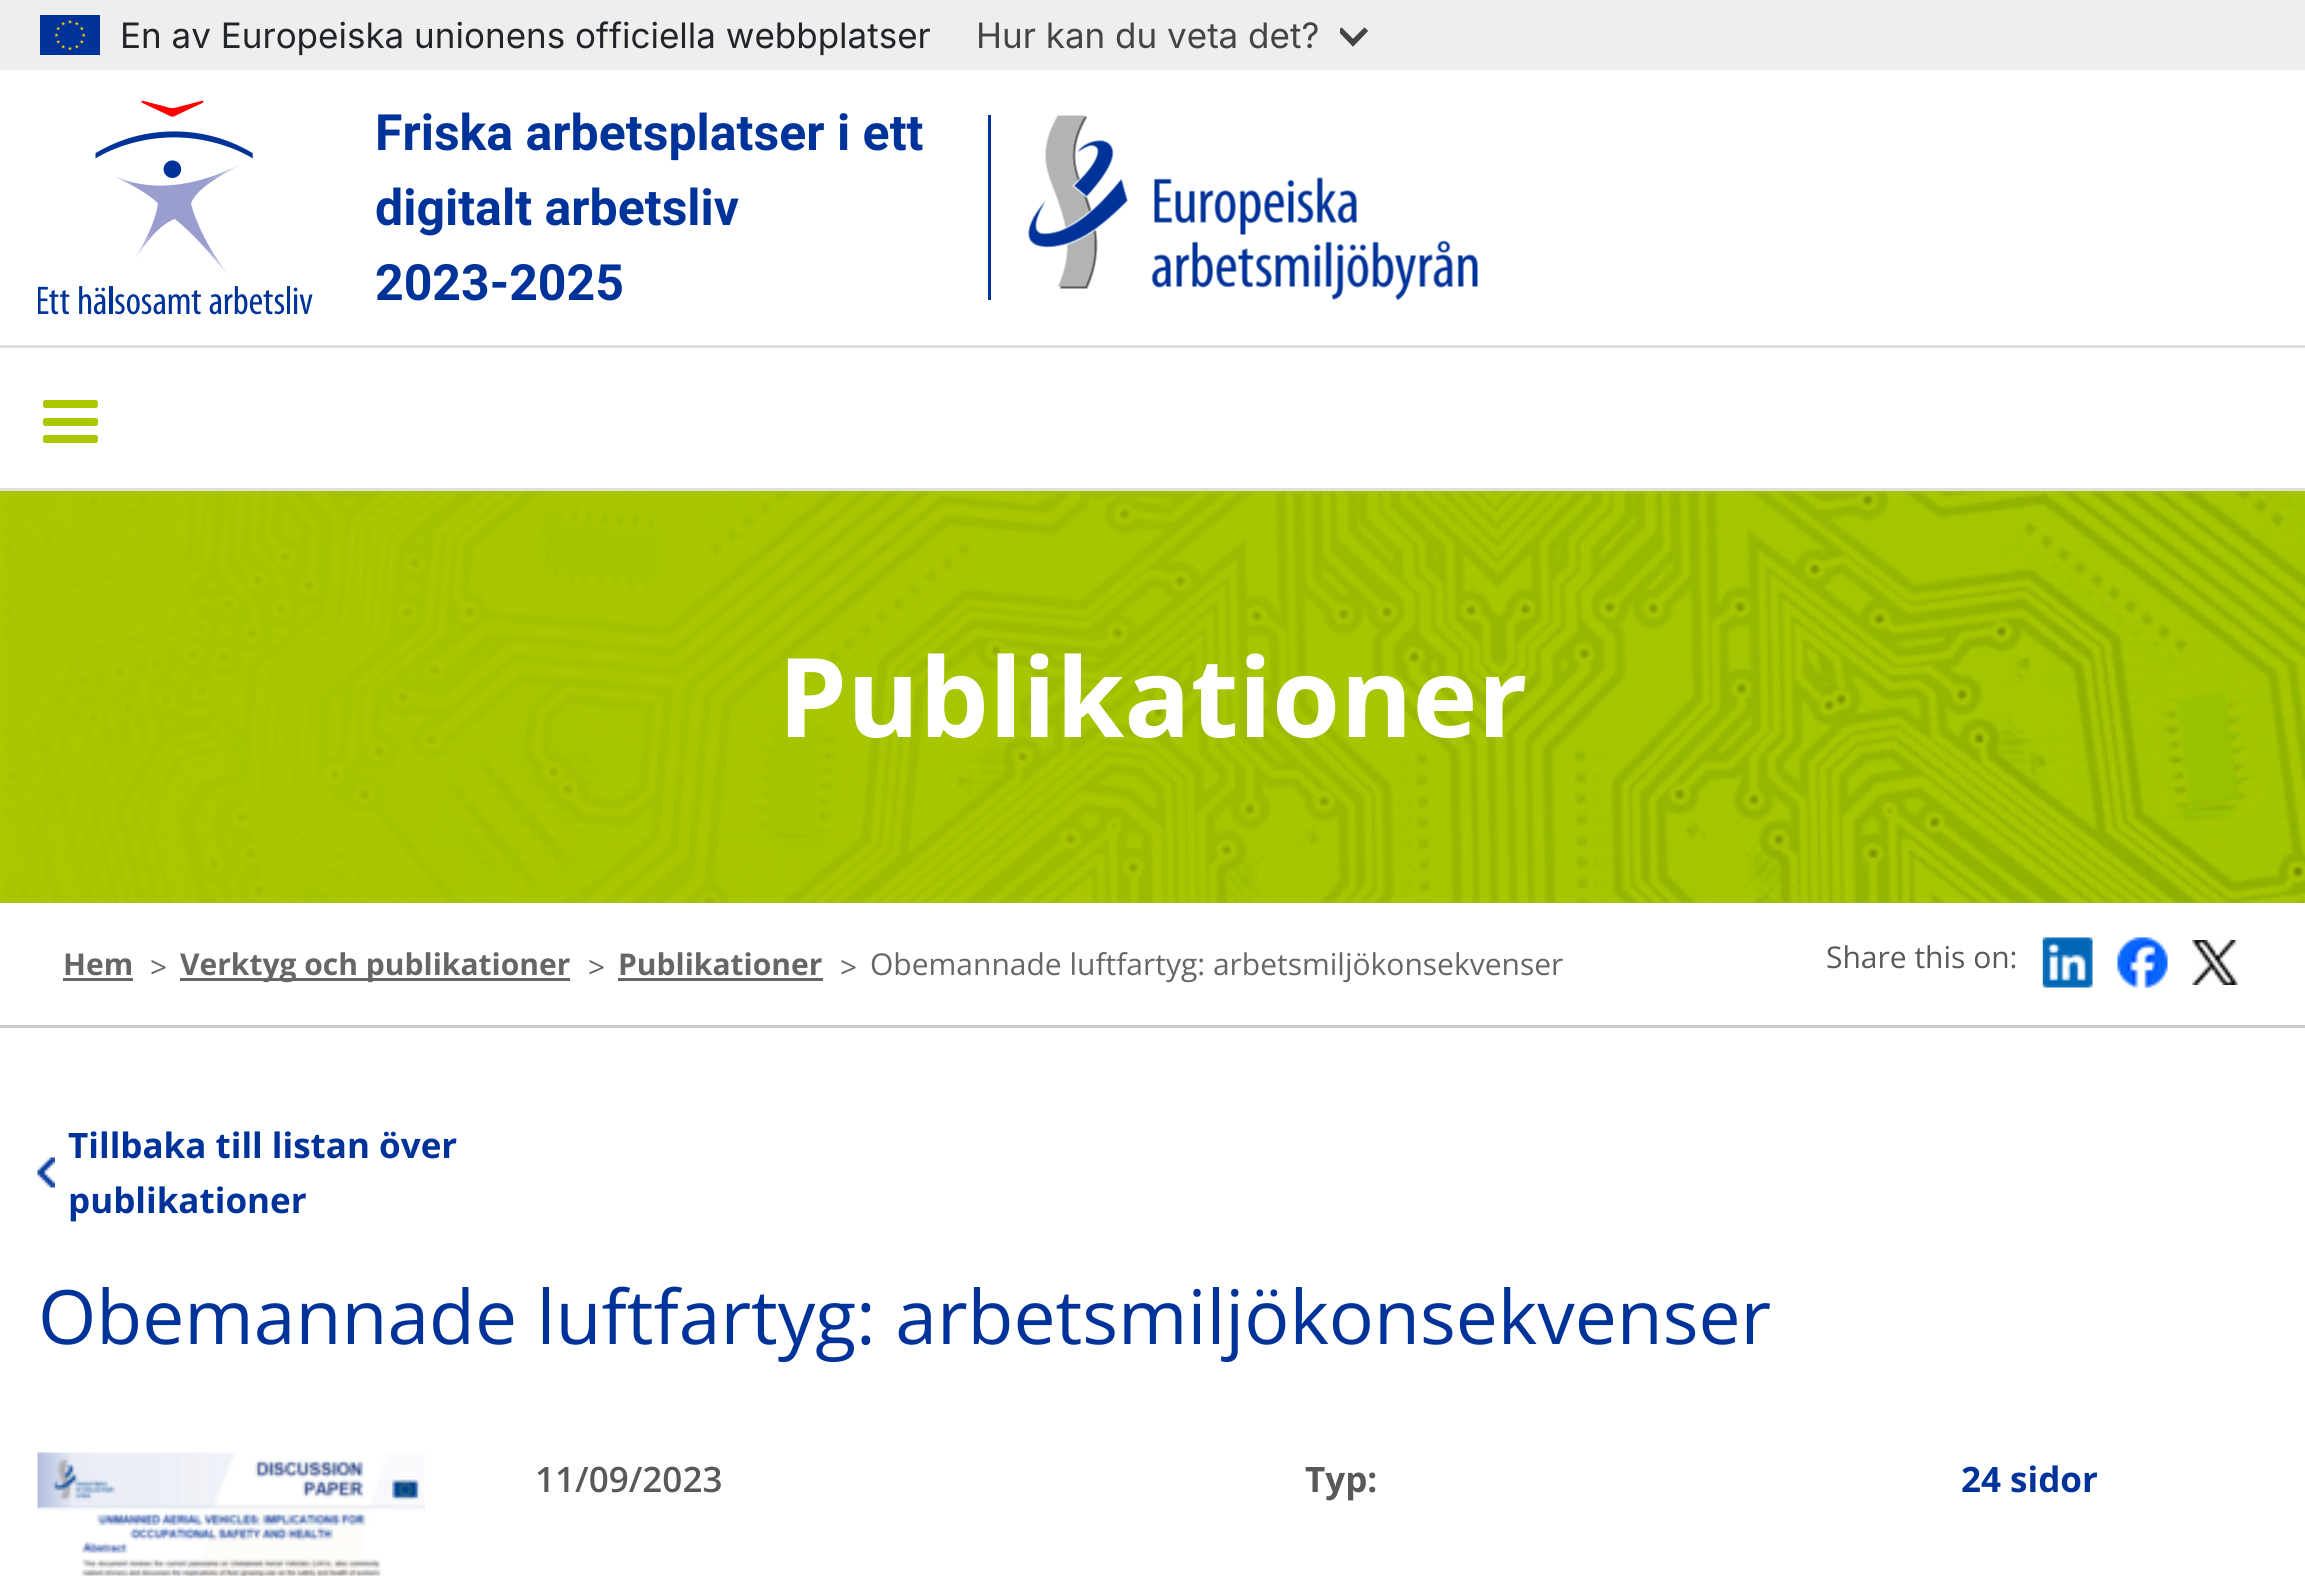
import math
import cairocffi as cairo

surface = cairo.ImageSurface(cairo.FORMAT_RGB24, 2305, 1576)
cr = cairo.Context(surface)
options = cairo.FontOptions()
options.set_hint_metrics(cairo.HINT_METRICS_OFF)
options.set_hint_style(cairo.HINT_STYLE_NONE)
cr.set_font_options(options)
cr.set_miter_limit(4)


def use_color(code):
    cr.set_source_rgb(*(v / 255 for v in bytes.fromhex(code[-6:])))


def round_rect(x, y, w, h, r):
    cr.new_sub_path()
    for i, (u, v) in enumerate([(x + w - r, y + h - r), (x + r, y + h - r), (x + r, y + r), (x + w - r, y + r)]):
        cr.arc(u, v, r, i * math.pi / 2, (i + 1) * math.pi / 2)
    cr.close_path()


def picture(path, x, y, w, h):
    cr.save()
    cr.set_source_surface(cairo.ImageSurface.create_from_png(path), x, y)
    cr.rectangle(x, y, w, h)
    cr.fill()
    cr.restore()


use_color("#ffffff")
cr.paint()
use_color("#eeeeee")
cr.rectangle(0, 0, 2305, 70)
cr.fill()
picture("img1.png", 40, 15, 60, 40)
cr.select_font_face("Inter")
cr.set_font_size(35)
use_color("#212529")
cr.move_to(120, 48)
cr.show_text("En av Europeiska unionens officiella webbplatser")
use_color("#444444")
cr.move_to(976, 48)
cr.show_text("Hur kan du veta det?")
cr.save()
cr.rectangle(1340, 20, 30, 30)
cr.clip()
cr.new_path()
cr.move_to(1340, 31)
cr.line_to(1341.5, 29.5)
cr.line_to(1353, 41)
cr.line_to(1364.5, 29.5)
cr.line_to(1366, 31)
cr.line_to(1353, 44.5)
cr.close_path()
cr.set_line_width(3.1)
cr.stroke()
cr.restore()
picture("img2.png", 38, 100, 275, 215)
cr.select_font_face("Roboto", cairo.FONT_SLANT_NORMAL, cairo.FONT_WEIGHT_BOLD)
cr.set_font_size(50)
use_color("#003399")
cr.move_to(375, 150)
cr.show_text("Friska arbetsplatser i ett")
cr.move_to(375, 225)
cr.show_text("digitalt arbetsliv")
cr.move_to(375, 300)
cr.show_text("2023-2025")
cr.rectangle(988, 115, 3, 185)
cr.fill()
picture("img3.png", 1028, 115, 450, 186)
use_color("#e0e0e0")
cr.rectangle(0, 345, 2305, 3)
cr.fill()
cr.rectangle(0, 488, 2305, 3)
cr.fill()
use_color("#acc700")
round_rect(43, 400, 55, 8, 2.5)
cr.fill()
round_rect(43, 418, 55, 8, 2.5)
cr.fill()
round_rect(43, 435, 55, 8, 2.5)
cr.fill()
cr.rectangle(0, 491, 2305, 412)
cr.fill()
picture("img4.png", 5, 491, 2300, 412)
cr.select_font_face("Open Sans", cairo.FONT_SLANT_NORMAL, cairo.FONT_WEIGHT_BOLD)
cr.set_font_size(110)
use_color("#ffffff")
cr.move_to(778, 737)
cr.show_text("Publikationer")
cr.set_font_size(30)
use_color("#666666")
cr.move_to(63, 975)
cr.show_text("Hem")
cr.rectangle(63, 978, 70, 3)
cr.fill()
cr.select_font_face("Open Sans")
cr.move_to(150, 978)
cr.show_text(">")
cr.rectangle(180, 978, 390, 3)
cr.fill()
cr.select_font_face("Open Sans", cairo.FONT_SLANT_NORMAL, cairo.FONT_WEIGHT_BOLD)
cr.move_to(180, 975)
cr.show_text("Verktyg och publikationer")
cr.select_font_face("Open Sans")
cr.move_to(588, 978)
cr.show_text(">")
cr.select_font_face("Open Sans", cairo.FONT_SLANT_NORMAL, cairo.FONT_WEIGHT_BOLD)
cr.move_to(618, 975)
cr.show_text("Publikationer")
cr.rectangle(618, 978, 205, 3)
cr.fill()
cr.select_font_face("Open Sans")
cr.move_to(840, 978)
cr.show_text(">")
cr.move_to(870, 975)
cr.show_text("Obemannade luftfartyg: arbetsmiljökonsekvenser")
use_color("#59595a")
cr.move_to(1826, 968)
cr.show_text("Share this on:")
picture("img5.png", 2042, 937, 51, 51)
picture("img6.png", 2117, 937, 51, 51)
picture("img7.png", 2192, 940, 46, 45)
use_color("#cccccc")
cr.rectangle(0, 1025, 2305, 3)
cr.fill()
picture("img8.png", 37, 1157, 18, 31)
cr.select_font_face("Open Sans", cairo.FONT_SLANT_NORMAL, cairo.FONT_WEIGHT_BOLD)
cr.set_font_size(35)
use_color("#003399")
cr.move_to(68, 1158)
cr.show_text("Tillbaka till listan över")
cr.move_to(68, 1213)
cr.show_text("publikationer")
cr.select_font_face("Open Sans")
cr.set_font_size(75)
cr.move_to(38, 1344)
cr.show_text("Obemannade luftfartyg: arbetsmiljökonsekvenser")
picture("img9.png", 37, 1452, 388, 124)
cr.select_font_face("Open Sans SemiBold")
cr.set_font_size(35)
use_color("#59595a")
cr.move_to(535, 1492)
cr.show_text("11/09/2023")
cr.select_font_face("Open Sans", cairo.FONT_SLANT_NORMAL, cairo.FONT_WEIGHT_BOLD)
cr.move_to(1305, 1492)
cr.show_text("Typ:")
use_color("#003399")
cr.move_to(1961, 1492)
cr.show_text("24 sidor")
surface.write_to_png("result.png")
